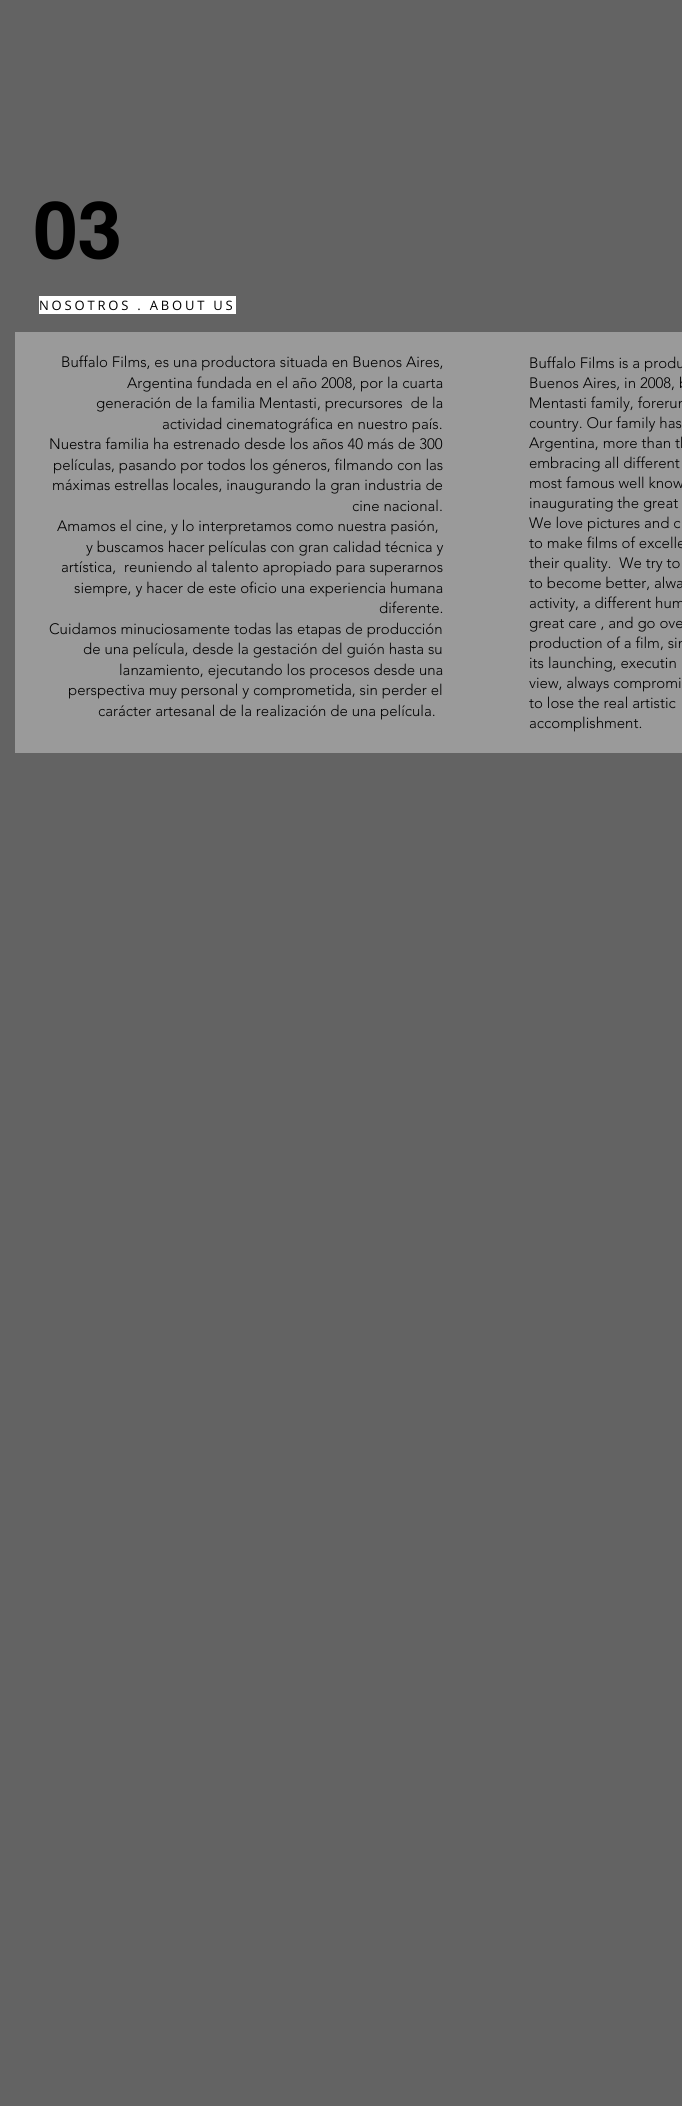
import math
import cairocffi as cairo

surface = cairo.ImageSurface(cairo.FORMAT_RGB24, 682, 2106)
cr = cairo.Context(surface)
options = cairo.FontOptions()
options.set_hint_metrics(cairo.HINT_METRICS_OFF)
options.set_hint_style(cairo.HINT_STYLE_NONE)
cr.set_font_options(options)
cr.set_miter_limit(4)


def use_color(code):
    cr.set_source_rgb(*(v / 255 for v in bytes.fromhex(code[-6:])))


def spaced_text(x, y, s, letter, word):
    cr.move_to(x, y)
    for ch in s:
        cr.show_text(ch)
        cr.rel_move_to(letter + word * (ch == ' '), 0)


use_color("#636363")
cr.paint()
cr.select_font_face("helvetica", cairo.FONT_SLANT_NORMAL, cairo.FONT_WEIGHT_BOLD)
cr.set_font_size(80)
use_color("#000000")
cr.move_to(33, 258)
cr.show_text("03")
use_color("#ffffff")
cr.rectangle(39, 296, 197, 18)
cr.fill()
cr.select_font_face("Open Sans")
cr.set_font_size(13)
use_color("#000000")
spaced_text(39, 310, "NOSOTROS . ABOUT US", 2.8, 0)
use_color("#9a9a9a")
cr.rectangle(15, 332, 667, 421)
cr.fill()
cr.select_font_face("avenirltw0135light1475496 Light")
cr.set_font_size(15)
use_color("#000000")
cr.move_to(61, 367)
cr.show_text("Buffalo Films, es una productora situada en Buenos Aires,")
cr.move_to(127, 388)
cr.show_text("Argentina fundada en el año 2008, por la cuarta")
cr.move_to(96, 408)
cr.show_text("generación de la familia Mentasti, precursores  de la")
cr.move_to(162, 429)
cr.show_text("actividad cinematográfica en nuestro país.")
cr.move_to(49, 449)
cr.show_text("Nuestra familia ha estrenado desde los años 40 más de 300")
cr.move_to(53, 470)
cr.show_text("películas, pasando por todos los géneros, filmando con las")
cr.move_to(52, 490)
cr.show_text("máximas estrellas locales, inaugurando la gran industria de")
cr.move_to(352, 511)
cr.show_text("cine nacional.")
cr.move_to(57, 531)
cr.show_text("Amamos el cine, y lo interpretamos como nuestra pasión,")
cr.move_to(86, 552)
cr.show_text("y buscamos hacer películas con gran calidad técnica y")
cr.move_to(61, 572)
cr.show_text("artística,  reuniendo al talento apropiado para superarnos")
cr.move_to(74, 593)
cr.show_text("siempre, y hacer de este oficio una experiencia humana")
cr.move_to(379, 613)
cr.show_text("diferente.")
cr.move_to(49, 634)
cr.show_text("Cuidamos minuciosamente todas las etapas de producción")
cr.move_to(83, 654)
cr.show_text("de una película, desde la gestación del guión hasta su")
cr.move_to(119, 675)
cr.show_text("lanzamiento, ejecutando los procesos desde una")
cr.move_to(68, 695)
cr.show_text("perspectiva muy personal y comprometida, sin perder el")
cr.move_to(98, 716)
cr.show_text("carácter artesanal de la realización de una película.")
cr.move_to(529, 368)
cr.show_text("Buffalo Films is a produ")
cr.move_to(529, 388)
cr.show_text("Buenos Aires, in 2008, b")
cr.move_to(529, 408)
cr.show_text("Mentasti family, forerun")
cr.move_to(529, 428)
cr.show_text("country. Our family has")
cr.move_to(529, 448)
cr.show_text("Argentina, more than th")
cr.move_to(529, 468)
cr.show_text("embracing all different")
cr.move_to(529, 488)
cr.show_text("most famous well know")
cr.move_to(529, 508)
cr.show_text("inaugurating the great")
cr.move_to(529, 528)
cr.show_text("We love pictures and c")
cr.move_to(529, 548)
cr.show_text("to make films of excelle")
cr.move_to(529, 568)
cr.show_text("their quality.  We try to")
cr.move_to(529, 588)
cr.show_text("to become better, alwa")
cr.move_to(529, 608)
cr.show_text("activity, a different hum")
cr.move_to(529, 628)
cr.show_text("great care , and go ove")
cr.move_to(529, 648)
cr.show_text("production of a film, sin")
cr.move_to(529, 668)
cr.show_text("its launching, executin")
cr.move_to(529, 688)
cr.show_text("view, always compromi")
cr.move_to(529, 708)
cr.show_text("to lose the real artistic")
cr.move_to(529, 728)
cr.show_text("accomplishment.")
surface.write_to_png("result.png")
